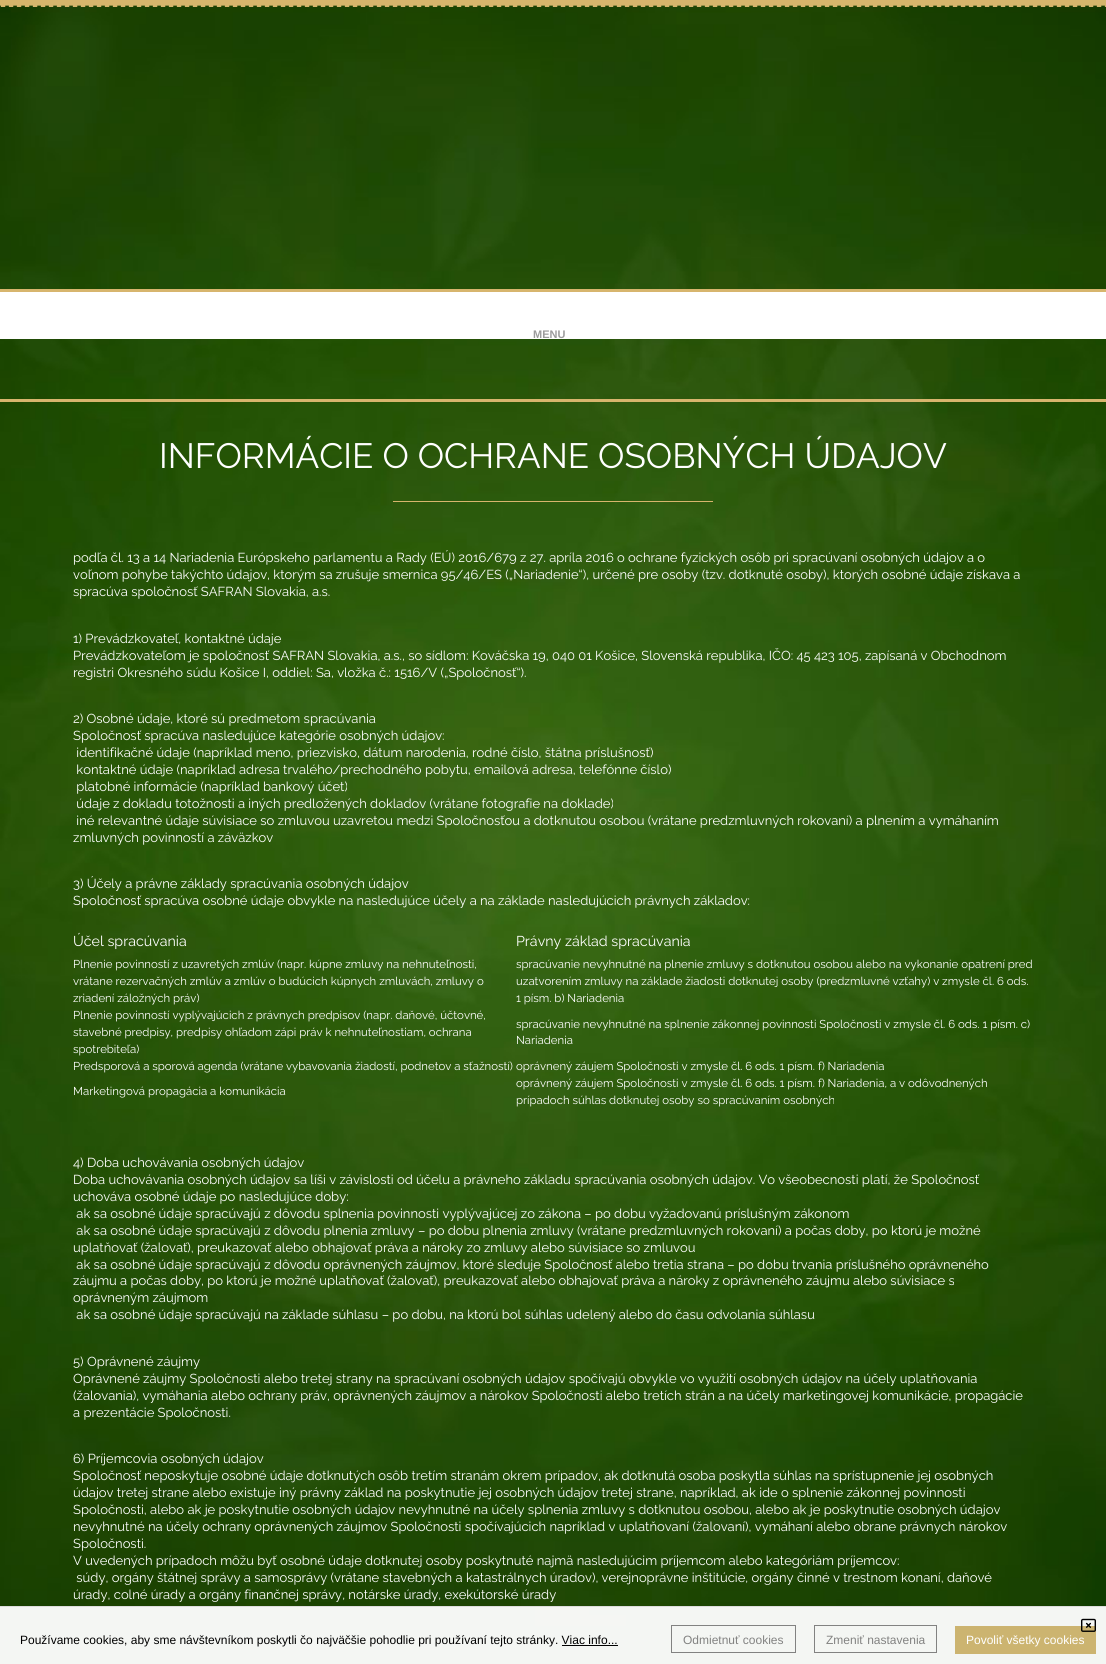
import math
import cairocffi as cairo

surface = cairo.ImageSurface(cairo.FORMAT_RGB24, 1106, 1664)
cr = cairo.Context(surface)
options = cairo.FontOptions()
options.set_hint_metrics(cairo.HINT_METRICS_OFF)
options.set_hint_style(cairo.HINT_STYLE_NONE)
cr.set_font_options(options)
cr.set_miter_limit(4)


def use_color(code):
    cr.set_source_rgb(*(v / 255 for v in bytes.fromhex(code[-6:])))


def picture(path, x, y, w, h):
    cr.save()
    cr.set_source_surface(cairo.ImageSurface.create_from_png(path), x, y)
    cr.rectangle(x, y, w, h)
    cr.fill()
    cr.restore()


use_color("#ffffff")
cr.paint()
picture("img1.png", 0, 5, 1106, 1659)
picture("img2.png", 0, 0, 1106, 7)
use_color("#ffffff")
cr.rectangle(0, 292, 1106, 47)
cr.fill()
use_color("#d7b56d")
cr.rectangle(0, 289, 1106, 3)
cr.fill()
cr.select_font_face("Liberation Sans", cairo.FONT_SLANT_NORMAL, cairo.FONT_WEIGHT_BOLD)
cr.set_font_size(11)
use_color("#9b9b9b")
cr.move_to(533, 338)
cr.show_text("MENU")
use_color("#d7b56d")
cr.rectangle(0, 399, 1106, 3)
cr.fill()
cr.select_font_face("Raleway")
cr.set_font_size(35.1)
use_color("#ffffff")
cr.move_to(159, 468)
cr.show_text("INFORMÁCIE O OCHRANE OSOBNÝCH ÚDAJOV")
use_color("#d7b56d")
cr.rectangle(393, 501, 320, 1)
cr.fill()
cr.set_font_size(13)
use_color("#ffffff")
cr.move_to(73, 562)
cr.show_text("podľa čl. 13 a 14 Nariadenia Európskeho parlamentu a Rady (EÚ) 2016/679 z 27. apríla 2016 o ochrane fyzických osôb pri spracúvaní osobných údajov a o")
cr.move_to(73, 579)
cr.show_text("voľnom pohybe takýchto údajov, ktorým sa zrušuje smernica 95/46/ES („Nariadenie“), určené pre osoby (tzv. dotknuté osoby), ktorých osobné údaje získava a")
cr.move_to(73, 596)
cr.show_text("spracúva spoločnosť SAFRAN Slovakia, a.s.")
cr.move_to(73, 643)
cr.show_text("1) Prevádzkovateľ, kontaktné údaje")
cr.move_to(73, 660)
cr.show_text("Prevádzkovateľom je spoločnosť SAFRAN Slovakia, a.s., so sídlom: Kováčska 19, 040 01 Košice, Slovenská republika, IČO: 45 423 105, zapísaná v Obchodnom")
cr.move_to(73, 677)
cr.show_text("registri Okresného súdu Košice I, oddiel: Sa, vložka č.: 1516/V („Spoločnosť“).")
cr.move_to(73, 723)
cr.show_text("2) Osobné údaje, ktoré sú predmetom spracúvania")
cr.move_to(73, 740)
cr.show_text("Spoločnosť spracúva nasledujúce kategórie osobných údajov:")
cr.move_to(73, 757)
cr.show_text(" identifikačné údaje (napríklad meno, priezvisko, dátum narodenia, rodné číslo, štátna príslušnosť)")
cr.move_to(73, 774)
cr.show_text(" kontaktné údaje (napríklad adresa trvalého/prechodného pobytu, emailová adresa, telefónne číslo)")
cr.move_to(73, 791)
cr.show_text(" platobné informácie (napríklad bankový účet)")
cr.move_to(73, 808)
cr.show_text(" údaje z dokladu totožnosti a iných predložených dokladov (vrátane fotografie na doklade)")
cr.move_to(73, 825)
cr.show_text(" iné relevantné údaje súvisiace so zmluvou uzavretou medzi Spoločnosťou a dotknutou osobou (vrátane predzmluvných rokovaní) a plnením a vymáhaním")
cr.move_to(73, 842)
cr.show_text("zmluvných povinností a záväzkov")
cr.move_to(73, 888)
cr.show_text("3) Účely a právne základy spracúvania osobných údajov")
cr.move_to(73, 905)
cr.show_text("Spoločnosť spracúva osobné údaje obvykle na nasledujúce účely a na základe nasledujúcich právnych základov:")
cr.set_font_size(14.25)
cr.move_to(73, 946)
cr.show_text("Účel spracúvania")
cr.move_to(516, 946)
cr.show_text("Právny základ spracúvania")
cr.set_font_size(11.4)
cr.move_to(73, 968)
cr.show_text("Plnenie povinností z uzavretých zmlúv (napr. kúpne zmluvy na nehnuteľnosti,")
cr.move_to(73, 985)
cr.show_text("vrátane rezervačných zmlúv a zmlúv o budúcich kúpnych zmluvách, zmluvy o")
cr.move_to(73, 1002)
cr.show_text("zriadení záložných práv)")
cr.move_to(516, 968)
cr.show_text("spracúvanie nevyhnutné na plnenie zmluvy s dotknutou osobou alebo na vykonanie opatrení pred")
cr.move_to(516, 985)
cr.show_text("uzatvorením zmluvy na základe žiadosti dotknutej osoby (predzmluvné vzťahy) v zmysle čl. 6 ods.")
cr.move_to(516, 1002)
cr.show_text("1 písm. b) Nariadenia")
cr.move_to(73, 1019)
cr.show_text("Plnenie povinností vyplývajúcich z právnych predpisov (napr. daňové, účtovné,")
cr.move_to(73, 1036)
cr.show_text("stavebné predpisy, predpisy ohľadom zápi práv k nehnuteľnostiam, ochrana")
cr.move_to(73, 1053)
cr.show_text("spotrebiteľa)")
cr.move_to(516, 1028)
cr.show_text("spracúvanie nevyhnutné na splnenie zákonnej povinnosti Spoločnosti v zmysle čl. 6 ods. 1 písm. c)")
cr.move_to(516, 1044)
cr.show_text("Nariadenia")
cr.move_to(73, 1070)
cr.show_text("Predsporová a sporová agenda (vrátane vybavovania žiadostí, podnetov a sťažností)")
cr.move_to(516, 1070)
cr.show_text("oprávnený záujem Spoločnosti v zmysle čl. 6 ods. 1 písm. f) Nariadenia")
cr.move_to(73, 1095)
cr.show_text("Marketingová propagácia a komunikácia")
cr.move_to(516, 1087)
cr.show_text("oprávnený záujem Spoločnosti v zmysle čl. 6 ods. 1 písm. f) Nariadenia, a v odôvodnených")
cr.move_to(516, 1104)
cr.show_text("prípadoch súhlas dotknutej osoby so spracúvaním osobných")
cr.set_font_size(13)
cr.move_to(73, 1167)
cr.show_text("4) Doba uchovávania osobných údajov")
cr.move_to(73, 1184)
cr.show_text("Doba uchovávania osobných údajov sa líši v závislosti od účelu a právneho základu spracúvania osobných údajov. Vo všeobecnosti platí, že Spoločnosť")
cr.move_to(73, 1201)
cr.show_text("uchováva osobné údaje po nasledujúce doby:")
cr.move_to(73, 1218)
cr.show_text(" ak sa osobné údaje spracúvajú z dôvodu splnenia povinnosti vyplývajúcej zo zákona – po dobu vyžadovanú príslušným zákonom")
cr.move_to(73, 1235)
cr.show_text(" ak sa osobné údaje spracúvajú z dôvodu plnenia zmluvy – po dobu plnenia zmluvy (vrátane predzmluvných rokovaní) a počas doby, po ktorú je možné")
cr.move_to(73, 1252)
cr.show_text("uplatňovať (žalovať), preukazovať alebo obhajovať práva a nároky zo zmluvy alebo súvisiace so zmluvou")
cr.move_to(73, 1269)
cr.show_text(" ak sa osobné údaje spracúvajú z dôvodu oprávnených záujmov, ktoré sleduje Spoločnosť alebo tretia strana – po dobu trvania príslušného oprávneného")
cr.move_to(73, 1285)
cr.show_text("záujmu a počas doby, po ktorú je možné uplatňovať (žalovať), preukazovať alebo obhajovať práva a nároky z oprávneného záujmu alebo súvisiace s")
cr.move_to(73, 1302)
cr.show_text("oprávneným záujmom")
cr.move_to(73, 1319)
cr.show_text(" ak sa osobné údaje spracúvajú na základe súhlasu – po dobu, na ktorú bol súhlas udelený alebo do času odvolania súhlasu")
cr.move_to(73, 1366)
cr.show_text("5) Oprávnené záujmy")
cr.move_to(73, 1383)
cr.show_text("Oprávnené záujmy Spoločnosti alebo tretej strany na spracúvaní osobných údajov spočívajú obvykle vo využití osobných údajov na účely uplatňovania")
cr.move_to(73, 1400)
cr.show_text("(žalovania), vymáhania alebo ochrany práv, oprávnených záujmov a nárokov Spoločnosti alebo tretích strán a na účely marketingovej komunikácie, propagácie")
cr.move_to(73, 1417)
cr.show_text("a prezentácie Spoločnosti.")
cr.move_to(73, 1463)
cr.show_text("6) Príjemcovia osobných údajov")
cr.move_to(73, 1480)
cr.show_text("Spoločnosť neposkytuje osobné údaje dotknutých osôb tretím stranám okrem prípadov, ak dotknutá osoba poskytla súhlas na sprístupnenie jej osobných")
cr.move_to(73, 1497)
cr.show_text("údajov tretej strane alebo existuje iný právny základ na poskytnutie jej osobných údajov tretej strane, napríklad, ak ide o splnenie zákonnej povinnosti")
cr.move_to(73, 1514)
cr.show_text("Spoločnosti, alebo ak je poskytnutie osobných údajov nevyhnutné na účely splnenia zmluvy s dotknutou osobou, alebo ak je poskytnutie osobných údajov")
cr.move_to(73, 1531)
cr.show_text("nevyhnutné na účely ochrany oprávnených záujmov Spoločnosti spočívajúcich napríklad v uplatňovaní (žalovaní), vymáhaní alebo obrane právnych nárokov")
cr.move_to(73, 1548)
cr.show_text("Spoločnosti.")
cr.move_to(73, 1565)
cr.show_text("V uvedených prípadoch môžu byť osobné údaje dotknutej osoby poskytnuté najmä nasledujúcim príjemcom alebo kategóriám príjemcov:")
cr.move_to(73, 1582)
cr.show_text(" súdy, orgány štátnej správy a samosprávy (vrátane stavebných a katastrálnych úradov), verejnoprávne inštitúcie, orgány činné v trestnom konaní, daňové")
cr.move_to(73, 1599)
cr.show_text("úrady, colné úrady a orgány finančnej správy, notárske úrady, exekútorské úrady")
cr.set_source_rgba(1, 1, 1, 0.95)
cr.rectangle(0, 1607, 1106, 57)
cr.fill()
use_color("#dddddd")
cr.rectangle(0, 1606, 1106, 1)
cr.fill()
use_color("#ccb470")
cr.rectangle(955, 1626, 141, 28)
cr.fill()
picture("img3.png", 1081, 1618, 15, 14)
cr.select_font_face("Liberation Sans")
cr.set_font_size(12)
use_color("#000000")
cr.move_to(20, 1644)
cr.show_text("Používame cookies, aby sme návštevníkom poskytli čo najväčšie pohodlie pri používaní tejto stránky. Viac info...")
cr.rectangle(562, 1645, 56, 1)
cr.fill()
cr.rectangle(671.5, 1625.5, 124, 27)
use_color("#828281")
cr.set_line_width(1)
cr.stroke()
cr.move_to(683, 1644)
cr.show_text("Odmietnuť cookies")
cr.rectangle(814.5, 1625.5, 122, 27)
cr.stroke()
cr.move_to(826, 1644)
cr.show_text("Zmeniť nastavenia")
use_color("#ffffff")
cr.move_to(966, 1644)
cr.show_text("Povoliť všetky cookies")
surface.write_to_png("result.png")
